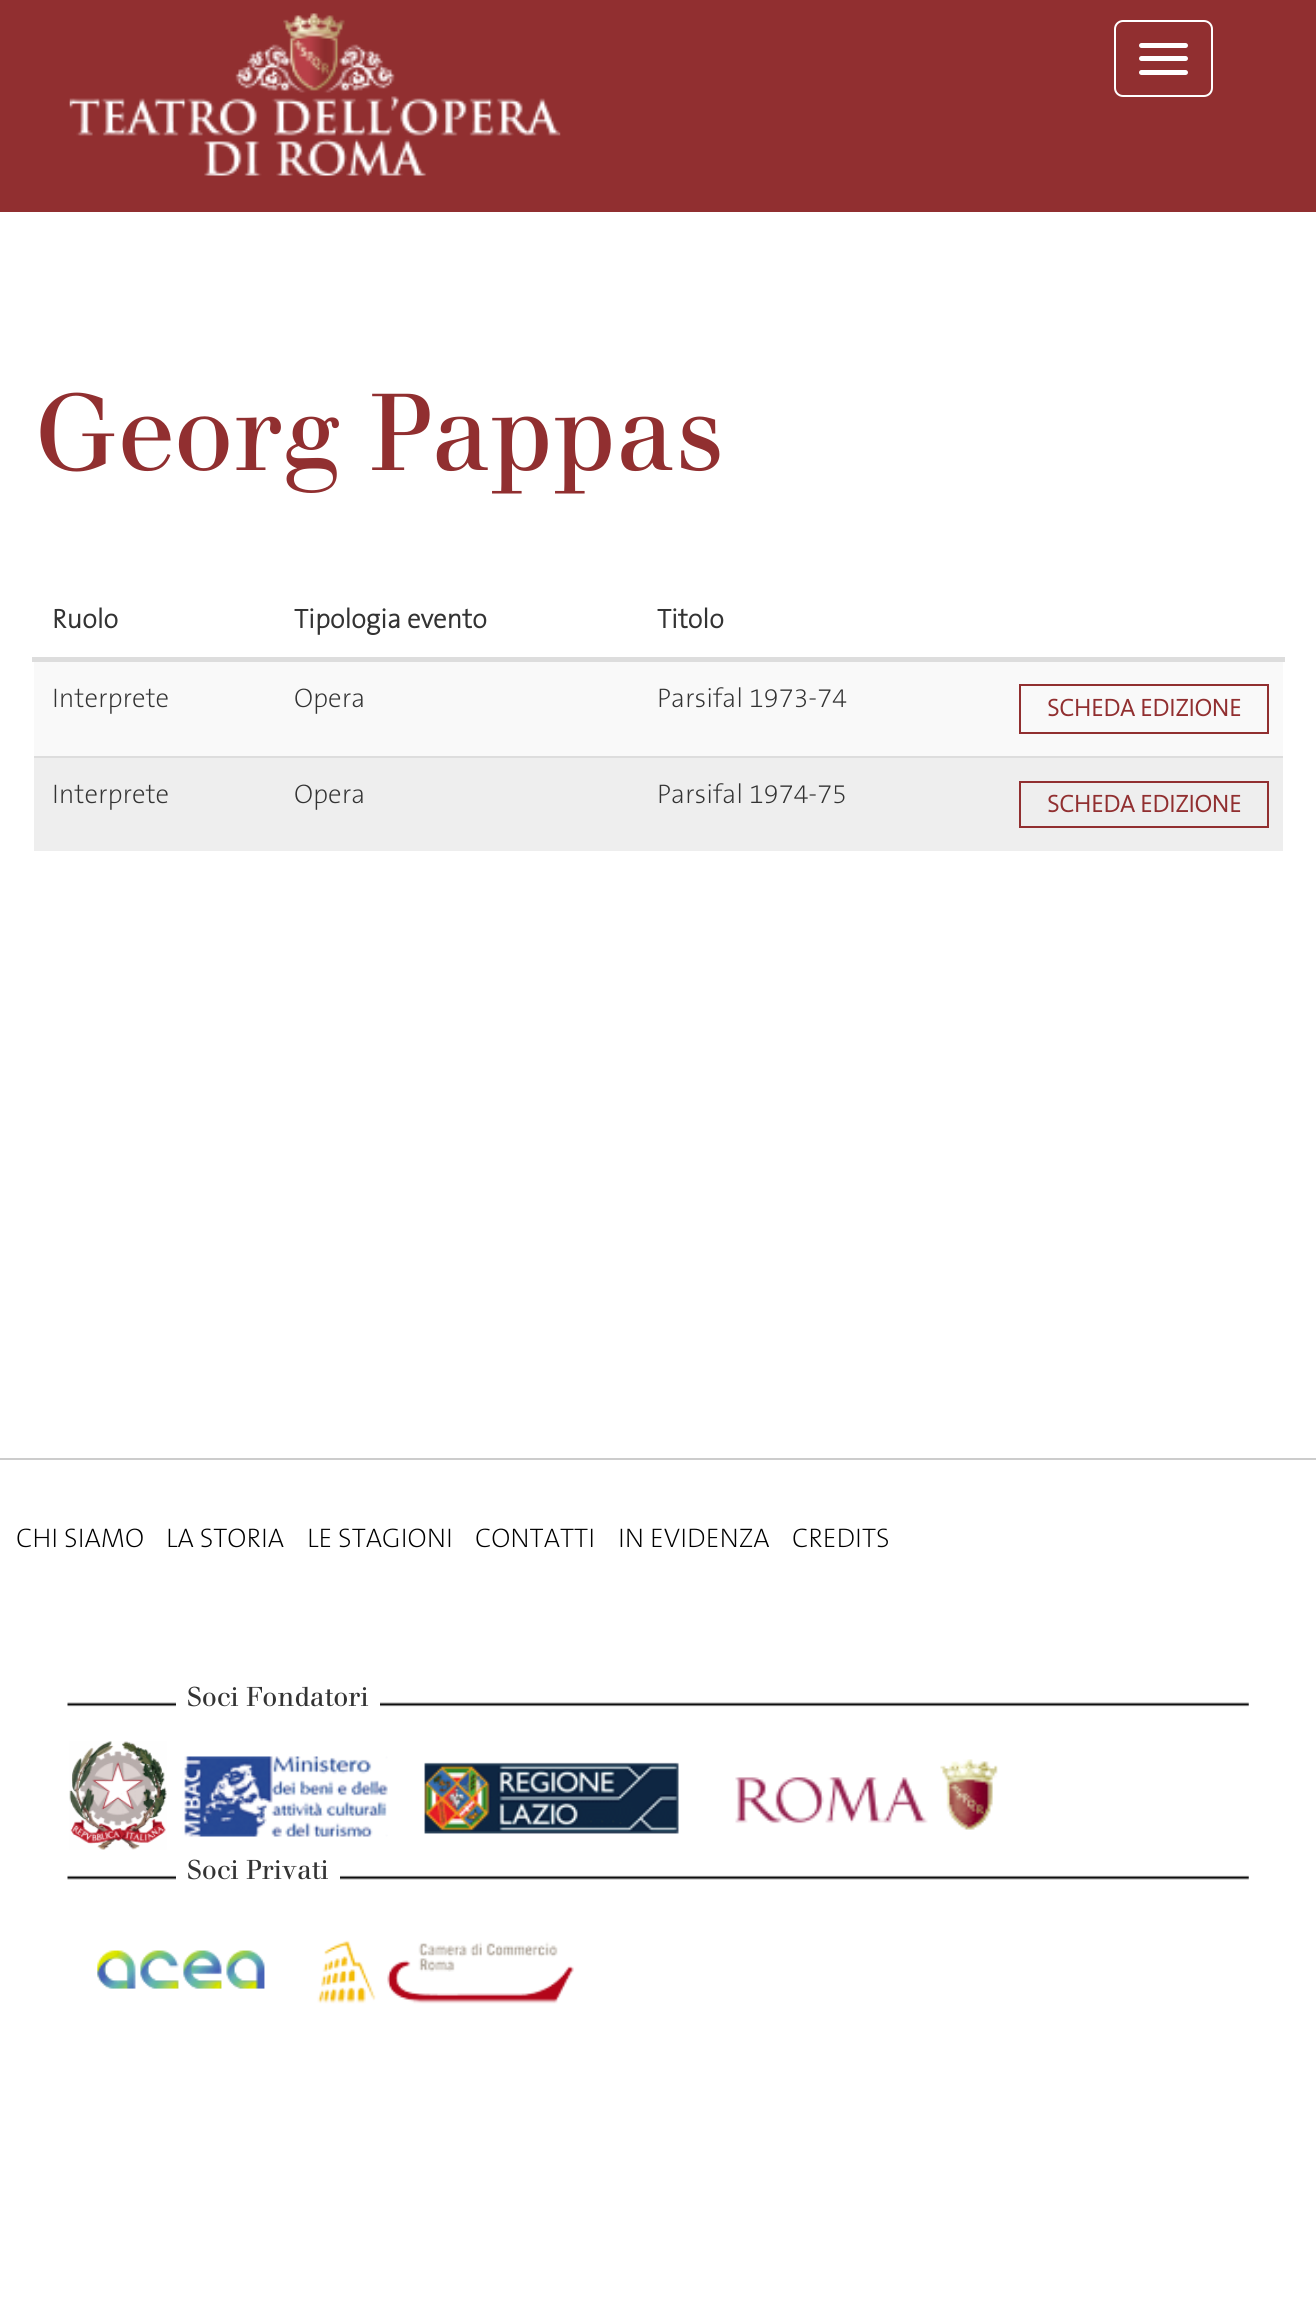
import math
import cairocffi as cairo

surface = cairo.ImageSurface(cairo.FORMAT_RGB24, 1316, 2302)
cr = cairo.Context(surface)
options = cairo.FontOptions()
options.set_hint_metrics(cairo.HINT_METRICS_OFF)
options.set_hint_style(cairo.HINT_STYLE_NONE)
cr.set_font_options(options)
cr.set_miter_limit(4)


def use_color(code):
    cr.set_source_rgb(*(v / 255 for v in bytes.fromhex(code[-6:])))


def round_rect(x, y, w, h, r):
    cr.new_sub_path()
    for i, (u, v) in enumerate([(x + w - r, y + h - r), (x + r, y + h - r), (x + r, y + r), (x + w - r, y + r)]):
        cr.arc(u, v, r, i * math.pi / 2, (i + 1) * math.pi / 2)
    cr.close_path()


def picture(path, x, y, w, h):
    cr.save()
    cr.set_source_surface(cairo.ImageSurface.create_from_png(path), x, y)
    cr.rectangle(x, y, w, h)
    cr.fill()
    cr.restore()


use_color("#ffffff")
cr.paint()
use_color("#912f30")
cr.rectangle(0, 0, 1316, 212)
cr.fill()
picture("img1.png", 69, 13, 492, 163)
round_rect(1115, 21, 97, 75, 8)
use_color("#ffffff")
cr.stroke()
round_rect(1139, 43, 49, 5, 2.5)
cr.fill()
round_rect(1139, 56, 49, 5, 2.5)
cr.fill()
round_rect(1139, 70, 49, 5, 2.5)
cr.fill()
cr.select_font_face("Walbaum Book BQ")
cr.set_font_size(108)
use_color("#912f30")
cr.move_to(34, 470)
cr.show_text("Georg Pappas")
cr.select_font_face("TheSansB", cairo.FONT_SLANT_NORMAL, cairo.FONT_WEIGHT_BOLD)
cr.set_font_size(27)
use_color("#333333")
cr.move_to(52, 628)
cr.show_text("Ruolo")
cr.move_to(294, 628)
cr.show_text("Tipologia evento")
cr.move_to(657, 628)
cr.show_text("Titolo")
use_color("#dddddd")
cr.rectangle(32, 657, 1253, 5)
cr.fill()
use_color("#f9f9f9")
cr.rectangle(34, 662, 1249, 94)
cr.fill()
cr.select_font_face("TheSansB ExtraLight")
use_color("#333333")
cr.move_to(52, 707)
cr.show_text("Interprete")
cr.move_to(294, 707)
cr.show_text("Opera")
cr.move_to(657, 707)
cr.show_text("Parsifal 1973-74")
cr.rectangle(1020, 685, 248, 48)
use_color("#912f30")
cr.stroke()
cr.select_font_face("TheSansB", cairo.FONT_SLANT_NORMAL, cairo.FONT_WEIGHT_BOLD)
cr.set_font_size(24.25)
cr.move_to(1047, 716)
cr.show_text("SCHEDA EDIZIONE")
use_color("#eeeeee")
cr.rectangle(34, 758, 1249, 93)
cr.fill()
cr.select_font_face("TheSansB ExtraLight")
cr.set_font_size(27)
use_color("#333333")
cr.move_to(52, 803)
cr.show_text("Interprete")
cr.move_to(294, 803)
cr.show_text("Opera")
cr.move_to(657, 803)
cr.show_text("Parsifal 1974-75")
use_color("#dddddd")
cr.rectangle(34, 756, 1249, 2)
cr.fill()
cr.rectangle(1020, 782, 248, 45)
use_color("#912f30")
cr.stroke()
cr.select_font_face("TheSansB", cairo.FONT_SLANT_NORMAL, cairo.FONT_WEIGHT_BOLD)
cr.set_font_size(24.25)
cr.move_to(1047, 812)
cr.show_text("SCHEDA EDIZIONE")
use_color("#cccccc")
cr.rectangle(0, 1458, 1316, 2)
cr.fill()
cr.select_font_face("TheSansB ExtraLight")
cr.set_font_size(27)
use_color("#000000")
cr.move_to(16, 1547)
cr.show_text("CHI SIAMO")
cr.move_to(166, 1547)
cr.show_text("LA STORIA")
cr.move_to(307, 1547)
cr.show_text("LE STAGIONI")
cr.move_to(475, 1547)
cr.show_text("CONTATTI")
cr.move_to(618, 1547)
cr.show_text("IN EVIDENZA")
cr.move_to(792, 1547)
cr.show_text("CREDITS")
picture("img2.png", 67, 1702, 1182, 5)
use_color("#ffffff")
cr.rectangle(176, 1702, 204, 5)
cr.fill()
cr.select_font_face("Walbaum Book BQ")
use_color("#333333")
cr.move_to(187, 1706)
cr.show_text("Soci Fondatori")
picture("img3.png", 69, 1741, 98, 109)
picture("img4.png", 184, 1756, 204, 81)
picture("img5.png", 424, 1762, 255, 72)
picture("img6.png", 735, 1759, 263, 71)
picture("img7.png", 67, 1875, 1182, 5)
use_color("#ffffff")
cr.rectangle(176, 1875, 164, 5)
cr.fill()
use_color("#333333")
cr.move_to(187, 1879)
cr.show_text("Soci Privati")
picture("img8.png", 97, 1950, 168, 39)
picture("img9.png", 317, 1940, 257, 64)
surface.write_to_png("result.png")
